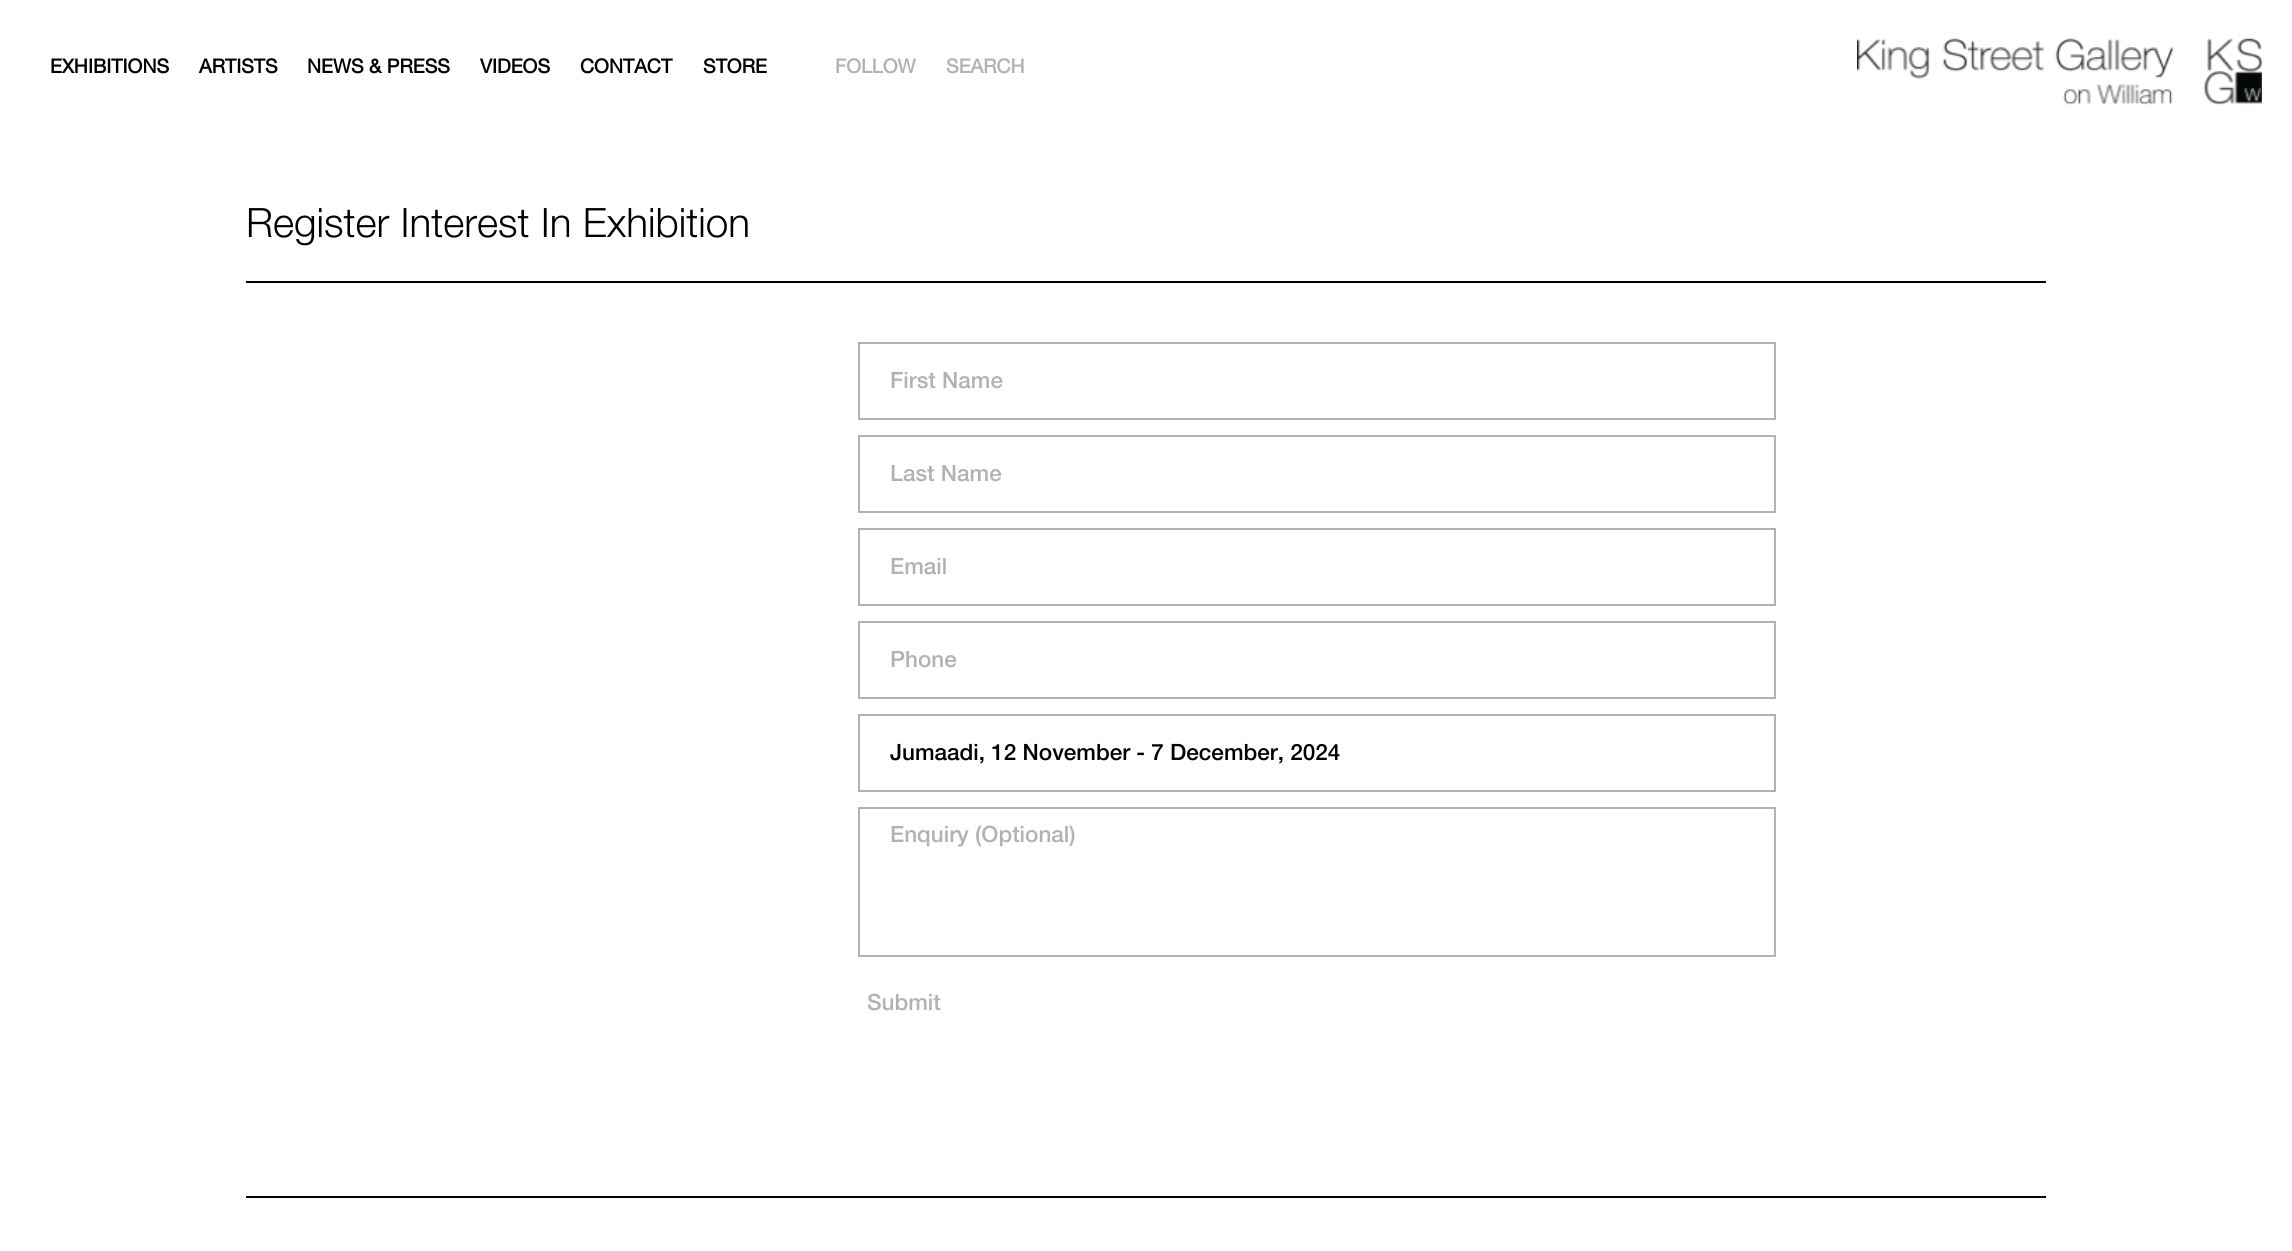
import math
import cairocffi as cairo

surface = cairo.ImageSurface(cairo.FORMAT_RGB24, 2292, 1251)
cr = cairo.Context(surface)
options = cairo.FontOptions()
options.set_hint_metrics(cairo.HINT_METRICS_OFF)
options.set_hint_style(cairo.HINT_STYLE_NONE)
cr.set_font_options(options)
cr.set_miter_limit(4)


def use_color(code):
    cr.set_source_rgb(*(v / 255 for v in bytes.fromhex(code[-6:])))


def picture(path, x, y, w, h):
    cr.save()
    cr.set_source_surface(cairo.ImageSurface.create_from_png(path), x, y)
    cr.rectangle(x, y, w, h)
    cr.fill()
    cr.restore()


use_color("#ffffff")
cr.paint()
cr.select_font_face("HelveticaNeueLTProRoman", cairo.FONT_SLANT_NORMAL, cairo.FONT_WEIGHT_BOLD)
cr.set_font_size(19.5)
use_color("#000000")
cr.move_to(50, 73)
cr.show_text("EXHIBITIONS")
cr.move_to(199, 73)
cr.show_text("ARTISTS")
cr.move_to(307, 73)
cr.show_text("NEWS & PRESS")
cr.move_to(480, 73)
cr.show_text("VIDEOS")
cr.move_to(580, 73)
cr.show_text("CONTACT")
cr.move_to(703, 73)
cr.show_text("STORE")
use_color("#b2b2b2")
cr.move_to(835, 73)
cr.show_text("FOLLOW")
cr.move_to(946, 73)
cr.show_text("SEARCH")
picture("img1.png", 1857, 38, 405, 67)
use_color("#000000")
cr.rectangle(246, 281, 1800, 2)
cr.fill()
cr.select_font_face("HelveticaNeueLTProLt")
cr.set_font_size(40.5)
cr.move_to(246, 237)
cr.show_text("Register Interest In Exhibition")
cr.rectangle(859, 343, 916, 76)
use_color("#b2b2b2")
cr.stroke()
cr.select_font_face("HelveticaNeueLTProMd")
cr.set_font_size(22.5)
cr.move_to(890, 388)
cr.show_text("First Name")
cr.rectangle(859, 436, 916, 76)
cr.stroke()
cr.move_to(890, 481)
cr.show_text("Last Name")
cr.rectangle(859, 529, 916, 76)
cr.stroke()
cr.move_to(890, 574)
cr.show_text("Email")
cr.rectangle(859, 622, 916, 76)
cr.stroke()
cr.move_to(890, 667)
cr.show_text("Phone")
cr.rectangle(859, 715, 916, 76)
cr.stroke()
cr.save()
cr.rectangle(890, 740, 855, 27)
cr.clip()
use_color("#000000")
cr.move_to(890, 760)
cr.show_text("Jumaadi, 12 November - 7 December, 2024")
cr.restore()
cr.rectangle(859, 808, 916, 148)
cr.stroke()
cr.move_to(890, 842)
cr.show_text("Enquiry (Optional)")
cr.move_to(867, 1010)
cr.show_text("Submit")
use_color("#000000")
cr.rectangle(246, 1196, 1800, 2)
cr.fill()
surface.write_to_png("result.png")
